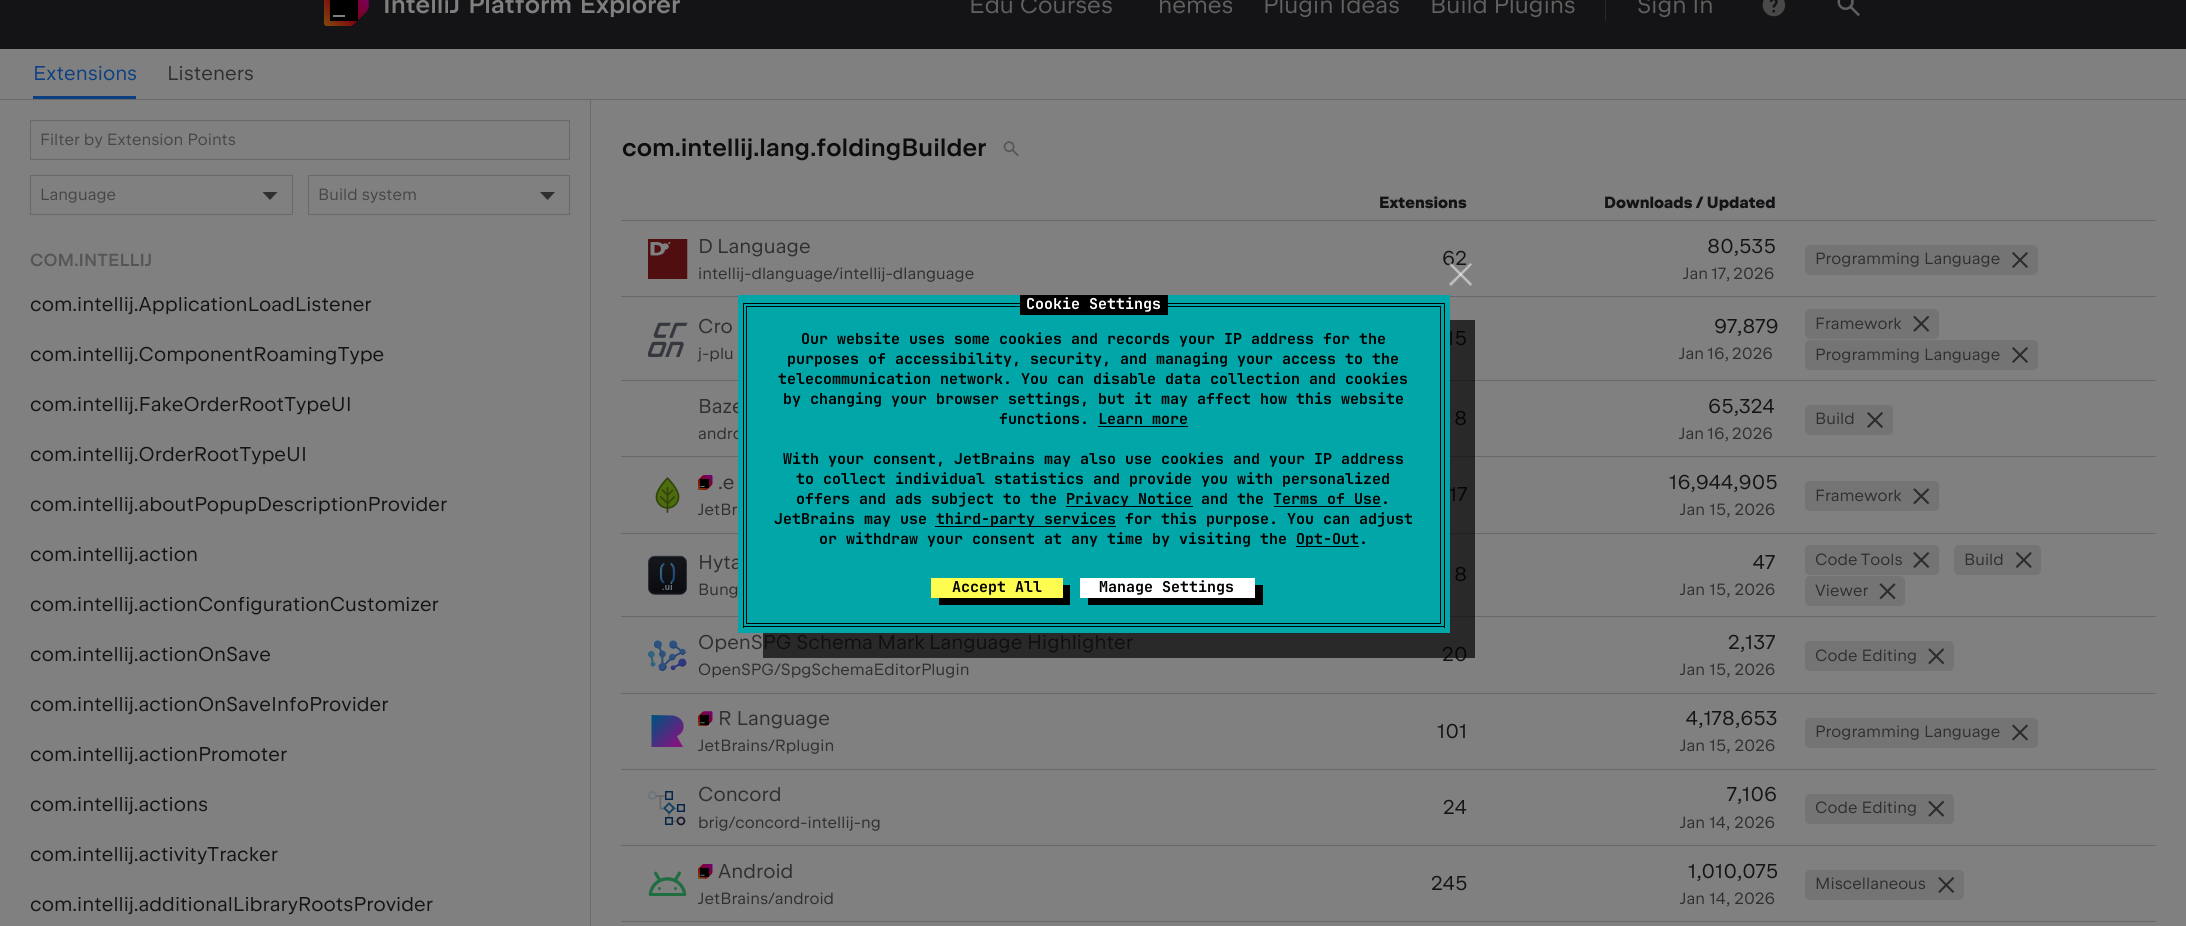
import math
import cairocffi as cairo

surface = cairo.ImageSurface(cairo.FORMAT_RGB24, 2186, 926)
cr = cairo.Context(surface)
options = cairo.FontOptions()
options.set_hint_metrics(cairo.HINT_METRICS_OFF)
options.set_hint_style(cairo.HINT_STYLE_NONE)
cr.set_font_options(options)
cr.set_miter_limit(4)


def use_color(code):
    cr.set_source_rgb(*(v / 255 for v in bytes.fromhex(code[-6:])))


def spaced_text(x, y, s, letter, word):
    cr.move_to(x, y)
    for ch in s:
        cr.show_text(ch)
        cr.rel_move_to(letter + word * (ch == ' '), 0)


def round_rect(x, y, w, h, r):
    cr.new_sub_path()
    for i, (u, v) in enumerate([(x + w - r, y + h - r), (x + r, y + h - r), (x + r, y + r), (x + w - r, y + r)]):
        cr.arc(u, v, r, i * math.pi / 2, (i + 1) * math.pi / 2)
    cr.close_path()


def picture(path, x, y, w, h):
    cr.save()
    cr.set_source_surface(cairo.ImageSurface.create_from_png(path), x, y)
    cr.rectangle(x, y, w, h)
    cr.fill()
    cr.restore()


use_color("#808080")
cr.paint()
use_color("#141416")
cr.rectangle(0, 0, 2186, 49)
cr.fill()
picture("img1.png", 324, 0, 45, 26)
cr.select_font_face("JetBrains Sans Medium")
cr.set_font_size(25)
use_color("#808080")
spaced_text(383, 13, "IntelliJ Platform Explorer", 0, 2)
cr.select_font_face("JetBrains Sans")
cr.set_font_size(23.75)
use_color("#5f6060")
cr.move_to(969, 13)
cr.show_text("Edu Courses")
cr.move_to(1158, 13)
cr.show_text("hemes")
cr.move_to(1263, 13)
cr.show_text("Plugin Ideas")
cr.move_to(1430, 13)
cr.show_text("Build Plugins")
use_color("#292a2b")
cr.rectangle(1605, 0, 1, 21)
cr.fill()
use_color("#5f6060")
cr.move_to(1637, 13)
cr.show_text("Sign In")
picture("img2.png", 1762, 0, 24, 17)
picture("img3.png", 1837, 0, 23, 17)
cr.set_font_size(20)
use_color("#0b3f80")
spaced_text(33, 80, "Extensions", 0.05, 0)
cr.rectangle(33, 96, 103, 3)
cr.fill()
use_color("#2f2f30")
spaced_text(167, 80, "Listeners", 0.05, 0)
use_color("#6a6a6b")
cr.rectangle(0, 99, 2186, 1)
cr.fill()
cr.rectangle(590, 100, 1, 826)
cr.fill()
cr.rectangle(30.5, 120.5, 539, 39)
use_color("#696969")
cr.set_line_width(1)
cr.stroke()
cr.set_font_size(16.25)
use_color("#464647")
spaced_text(40, 145, "Filter by Extension Points", 0.05, 0)
cr.rectangle(30.5, 175.5, 262, 39)
use_color("#696969")
cr.stroke()
use_color("#464647")
spaced_text(40, 200, "Language", 0.05, 0)
use_color("#2f2f30")
cr.new_path()
cr.move_to(277.5, 192)
cr.line_to(262.5, 192)
cr.line_to(270, 200)
cr.close_path()
cr.fill()
cr.rectangle(308.5, 175.5, 261, 39)
use_color("#696969")
cr.stroke()
use_color("#464647")
spaced_text(318, 200, "Build system", 0.05, 0)
use_color("#2f2f30")
cr.new_path()
cr.move_to(555, 192)
cr.line_to(540, 192)
cr.line_to(547.5, 200)
cr.close_path()
cr.fill()
cr.select_font_face("JetBrains Sans Medium")
cr.set_font_size(17.5)
use_color("#555556")
spaced_text(30, 266, "COM.INTELLIJ", 0.05, 0)
cr.select_font_face("JetBrains Sans")
cr.set_font_size(20)
use_color("#141416")
spaced_text(30, 311, "com.intellij.ApplicationLoadListener", 0.05, 0)
spaced_text(30, 361, "com.intellij.ComponentRoamingType", 0.05, 0)
spaced_text(30, 411, "com.intellij.FakeOrderRootTypeUI", 0.05, 0)
spaced_text(30, 461, "com.intellij.OrderRootTypeUI", 0.05, 0)
spaced_text(30, 511, "com.intellij.aboutPopupDescriptionProvider", 0.05, 0)
spaced_text(30, 561, "com.intellij.action", 0.05, 0)
spaced_text(30, 611, "com.intellij.actionConfigurationCustomizer", 0.05, 0)
spaced_text(30, 661, "com.intellij.actionOnSave", 0.05, 0)
spaced_text(30, 711, "com.intellij.actionOnSaveInfoProvider", 0.05, 0)
spaced_text(30, 761, "com.intellij.actionPromoter", 0.05, 0)
spaced_text(30, 811, "com.intellij.actions", 0.05, 0)
spaced_text(30, 861, "com.intellij.activityTracker", 0.05, 0)
spaced_text(30, 911, "com.intellij.additionalLibraryRootsProvider", 0.05, 0)
cr.select_font_face("JetBrains Sans Medium")
cr.set_font_size(25)
use_color("#0d0d0e")
cr.move_to(622, 156)
cr.show_text("com.intellij.lang.foldingBuilder")
picture("img4.png", 1003, 141, 16, 16)
cr.select_font_face("JetBrains Sans", cairo.FONT_SLANT_NORMAL, cairo.FONT_WEIGHT_BOLD)
cr.set_font_size(16.25)
use_color("#141416")
spaced_text(1379, 208, "Extensions", 0.05, 0)
spaced_text(1604, 208, "Downloads / Updated", 0.05, 0)
use_color("#696969")
cr.rectangle(621, 220, 1535, 1)
cr.fill()
cr.rectangle(621, 296, 117, 1)
cr.fill()
picture("img5.png", 648, 239, 40, 40)
cr.select_font_face("JetBrains Sans")
cr.set_font_size(20)
use_color("#2f2f30")
spaced_text(698, 253, "D Language", 0.05, -1)
cr.set_font_size(16.25)
spaced_text(698, 279, "intellij-dlanguage/intellij-dlanguage", 0.05, 0)
use_color("#696969")
cr.rectangle(1450, 296, 706, 1)
cr.fill()
cr.set_font_size(20)
use_color("#141416")
spaced_text(1442, 265, "62", 0.05, 0)
spaced_text(1707, 253, "80,535", 0.05, 0)
cr.set_font_size(16.25)
use_color("#2f2f30")
spaced_text(1683, 279, "Jan 17, 2026", 0.05, -1)
use_color("#747474")
round_rect(1805, 245, 233, 30, 5)
cr.fill()
use_color("#2f2f30")
spaced_text(1815, 264, "Programming Language", 0.05, 0)
picture("img6.png", 2012, 252, 16, 16)
cr.set_font_size(20)
spaced_text(698, 333, "Cro", 0.05, 0)
cr.set_font_size(16.25)
spaced_text(698, 359, "j-plu", 0.05, 0)
cr.set_font_size(20)
use_color("#141416")
spaced_text(1714, 333, "97,879", 0.05, 0)
cr.set_font_size(16.25)
use_color("#2f2f30")
spaced_text(1679, 359, "Jan 16, 2026", 0.05, -1)
use_color("#747474")
round_rect(1805, 309, 134, 30, 5)
cr.fill()
use_color("#2f2f30")
spaced_text(1815, 329, "Framework", 0.05, 0)
picture("img7.png", 1913, 315, 17, 17)
use_color("#747474")
round_rect(1805, 340, 233, 30, 5)
cr.fill()
use_color("#2f2f30")
spaced_text(1815, 360, "Programming Language", 0.05, 0)
picture("img6.png", 2012, 347, 16, 16)
use_color("#696969")
cr.rectangle(621, 380, 117, 1)
cr.fill()
picture("img8.png", 648, 322, 40, 35)
cr.rectangle(1450, 380, 706, 1)
cr.fill()
cr.set_font_size(20)
use_color("#141416")
spaced_text(1446, 345, "15", 0.05, 0)
use_color("#2f2f30")
spaced_text(698, 413, "Baze", 0.05, 0)
cr.set_font_size(16.25)
spaced_text(698, 439, "andro", 0.05, 0)
use_color("#696969")
cr.rectangle(1450, 456, 706, 1)
cr.fill()
cr.set_font_size(20)
use_color("#141416")
spaced_text(1454, 425, "8", 0.05, 0)
spaced_text(1708, 413, "65,324", 0.05, 0)
cr.set_font_size(16.25)
use_color("#2f2f30")
spaced_text(1679, 439, "Jan 16, 2026", 0.05, -1)
use_color("#747474")
round_rect(1805, 405, 88, 30, 5)
cr.fill()
use_color("#2f2f30")
spaced_text(1815, 424, "Build", 0.05, 0)
picture("img6.png", 1867, 412, 16, 16)
use_color("#696969")
cr.rectangle(621, 456, 117, 1)
cr.fill()
cr.rectangle(621, 533, 117, 1)
cr.fill()
picture("img9.png", 655, 477, 25, 36)
cr.set_font_size(20)
use_color("#141416")
spaced_text(1669, 489, "16,944,905", 0.05, 0)
cr.set_font_size(16.25)
use_color("#2f2f30")
spaced_text(1680, 515, "Jan 15, 2026", 0.05, 0)
picture("img10.png", 698, 475, 15, 15)
cr.set_font_size(20)
spaced_text(718, 489, ".e", 0.05, -1)
cr.set_font_size(16.25)
spaced_text(698, 515, "JetBr", 0.05, 0)
use_color("#696969")
cr.rectangle(1450, 533, 706, 1)
cr.fill()
cr.set_font_size(20)
use_color("#141416")
spaced_text(1449, 501, "17", 0.05, 0)
use_color("#747474")
round_rect(1805, 481, 134, 30, 5)
cr.fill()
cr.set_font_size(16.25)
use_color("#2f2f30")
spaced_text(1815, 501, "Framework", 0.05, 0)
picture("img11.png", 1913, 488, 17, 17)
use_color("#696969")
cr.rectangle(621, 616, 117, 1)
cr.fill()
picture("img12.png", 648, 555, 39, 40)
use_color("#747474")
round_rect(1805, 545, 134, 30, 5)
cr.fill()
use_color("#2f2f30")
spaced_text(1815, 565, "Code Tools", 0.05, -1)
picture("img13.png", 1913, 552, 17, 16)
use_color("#747474")
round_rect(1954, 545, 87, 30, 5)
cr.fill()
use_color("#2f2f30")
spaced_text(1964, 565, "Build", 0.05, 0)
picture("img14.png", 2015, 552, 17, 16)
use_color("#747474")
round_rect(1805, 576, 100, 30, 5)
cr.fill()
use_color("#2f2f30")
spaced_text(1815, 596, "Viewer", 0.05, 0)
picture("img15.png", 1879, 583, 17, 17)
cr.set_font_size(20)
spaced_text(698, 569, "Hyta", 0.05, 0)
cr.set_font_size(16.25)
spaced_text(698, 595, "Bung", 0.05, 0)
use_color("#696969")
cr.rectangle(1450, 616, 706, 1)
cr.fill()
cr.set_font_size(20)
use_color("#141416")
spaced_text(1454, 581, "8", 0.05, 0)
spaced_text(1753, 569, "47", 0.05, 0)
cr.set_font_size(16.25)
use_color("#2f2f30")
spaced_text(1680, 595, "Jan 15, 2026", 0.05, 0)
cr.set_font_size(20)
spaced_text(698, 649, "OpenSPG Schema Mark Language Highlighter", 0.05, -0.5)
cr.set_font_size(16.25)
spaced_text(698, 675, "OpenSPG/SpgSchemaEditorPlugin", 0.05, 0)
cr.set_font_size(20)
use_color("#141416")
spaced_text(1728, 649, "2,137", 0.05, 0)
cr.set_font_size(16.25)
use_color("#2f2f30")
spaced_text(1680, 675, "Jan 15, 2026", 0.05, 0)
use_color("#696969")
cr.rectangle(621, 693, 1535, 1)
cr.fill()
picture("img16.png", 648, 640, 39, 31)
cr.set_font_size(20)
use_color("#141416")
spaced_text(1442, 661, "20", 0.05, 0)
use_color("#747474")
round_rect(1805, 641, 149, 30, 5)
cr.fill()
cr.set_font_size(16.25)
use_color("#2f2f30")
spaced_text(1815, 661, "Code Editing", 0.05, 0)
picture("img11.png", 1928, 648, 17, 17)
picture("img17.png", 698, 711, 15, 15)
cr.set_font_size(20)
spaced_text(718, 725, "R Language", 0.05, 0)
cr.set_font_size(16.25)
spaced_text(698, 751, "JetBrains/Rplugin", 0.05, 0)
cr.set_font_size(20)
use_color("#141416")
spaced_text(1686, 725, "4,178,653", 0.05, 0)
cr.set_font_size(16.25)
use_color("#2f2f30")
spaced_text(1680, 751, "Jan 15, 2026", 0.05, 0)
use_color("#696969")
cr.rectangle(621, 769, 1535, 1)
cr.fill()
gradient = cairo.LinearGradient(681, 748, 650, 717)
gradient.add_color_stop_rgba(0.13, 0.502, 0.082, 0.502, 1)
gradient.add_color_stop_rgba(0.95, 0, 0.314, 0.502, 1)
cr.set_source(gradient)
cr.new_path()
cr.move_to(677, 736)
cr.curve_to(680.5, 734.5, 683, 731.5, 683.5, 728)
cr.curve_to(684.5, 721.5, 679.5, 716.5, 673, 715.5)
cr.line_to(651.5, 715)
cr.line_to(651.5, 747)
cr.line_to(683, 747)
cr.line_to(677, 736.5)
cr.close_path()
cr.fill()
cr.set_font_size(20)
use_color("#141416")
spaced_text(1437, 738, "101", 0.05, 0)
use_color("#747474")
round_rect(1805, 718, 233, 30, 5)
cr.fill()
cr.set_font_size(16.25)
use_color("#2f2f30")
spaced_text(1815, 737, "Programming Language", 0.05, 0)
picture("img18.png", 2012, 724, 16, 17)
cr.set_font_size(20)
spaced_text(698, 801, "Concord", 0.05, 0)
cr.set_font_size(16.25)
spaced_text(698, 828, "brig/concord-intellij-ng", 0.05, 0)
cr.set_font_size(20)
use_color("#141416")
spaced_text(1727, 801, "7,106", 0.05, 0)
cr.set_font_size(16.25)
use_color("#2f2f30")
spaced_text(1680, 828, "Jan 14, 2026", 0.05, 0)
use_color("#696969")
cr.rectangle(621, 845, 1535, 1)
cr.fill()
picture("img19.png", 648, 791, 38, 35)
cr.set_font_size(20)
use_color("#141416")
spaced_text(1443, 814, "24", 0.05, 0)
use_color("#747474")
round_rect(1805, 794, 149, 30, 5)
cr.fill()
cr.set_font_size(16.25)
use_color("#2f2f30")
spaced_text(1815, 813, "Code Editing", 0.05, 0)
picture("img7.png", 1928, 800, 17, 17)
picture("img20.png", 698, 864, 15, 15)
cr.set_font_size(20)
spaced_text(718, 878, "Android", 0.05, 0)
cr.set_font_size(16.25)
spaced_text(698, 904, "JetBrains/android", 0.05, 0)
cr.set_font_size(20)
use_color("#141416")
spaced_text(1688, 878, "1,010,075", 0.05, 0)
cr.set_font_size(16.25)
use_color("#2f2f30")
spaced_text(1680, 904, "Jan 14, 2026", 0.05, 0)
use_color("#696969")
cr.rectangle(621, 921, 1535, 1)
cr.fill()
picture("img21.png", 648, 871, 39, 25)
cr.set_font_size(20)
use_color("#141416")
spaced_text(1431, 890, "245", 0.05, 0)
use_color("#747474")
round_rect(1805, 870, 159, 30, 5)
cr.fill()
cr.set_font_size(16.25)
use_color("#2f2f30")
spaced_text(1815, 889, "Miscellaneous", 0.05, 0)
picture("img13.png", 1938, 877, 17, 16)
cr.set_source_rgba(0, 0, 0, 0.68)
cr.new_path()
cr.move_to(763, 632)
cr.line_to(763, 658)
cr.line_to(1475, 658)
cr.line_to(1475, 320)
cr.line_to(1450, 320)
cr.line_to(1450, 632)
cr.close_path()
cr.fill()
use_color("#01a7a8")
cr.rectangle(738, 295, 712, 338)
cr.fill()
use_color("#bfbfbf")
cr.new_path()
cr.move_to(1449, 284)
cr.line_to(1470.5, 263)
cr.line_to(1472, 264.5)
cr.line_to(1451, 286)
cr.close_path()
cr.fill()
cr.set_source_rgba(1, 1, 1, 0.5)
cr.new_path()
cr.move_to(1451, 263)
cr.line_to(1472, 284)
cr.line_to(1470.5, 286)
cr.line_to(1449, 264.5)
cr.close_path()
cr.fill()
use_color("#000000")
cr.rectangle(746, 306, 695, 1)
cr.fill()
cr.rectangle(1440, 306, 1, 318)
cr.fill()
cr.rectangle(746, 306, 1, 272)
cr.fill()
cr.rectangle(743, 303, 702, 1)
cr.fill()
cr.rectangle(1020, 295, 148, 20)
cr.fill()
cr.select_font_face("JetBrains Mono", cairo.FONT_SLANT_NORMAL, cairo.FONT_WEIGHT_BOLD)
cr.set_font_size(15)
use_color("#ffffff")
cr.move_to(1026, 309)
cr.show_text("Cookie Settings")
use_color("#000000")
cr.rectangle(1444, 303, 1, 325)
cr.fill()
cr.rectangle(743, 303, 1, 273)
cr.fill()
cr.move_to(801, 344)
cr.show_text("Our website uses some cookies and records your IP address for the")
cr.move_to(787, 364)
cr.show_text("purposes of accessibility, security, and managing your access to the")
cr.move_to(778, 384)
cr.show_text("telecommunication network. You can disable data collection and cookies")
cr.move_to(783, 404)
cr.show_text("by changing your browser settings, but it may affect how this website")
cr.move_to(999, 424)
cr.show_text("functions. Learn more")
cr.rectangle(1098, 426, 90, 1)
cr.fill()
cr.move_to(783, 464)
cr.show_text("With your consent, JetBrains may also use cookies and your IP address")
cr.move_to(796, 484)
cr.show_text("to collect individual statistics and provide you with personalized")
cr.move_to(796, 504)
cr.show_text("offers and ads subject to the")
cr.rectangle(1066, 506, 127, 1)
cr.fill()
cr.move_to(1066, 504)
cr.show_text("Privacy Notice and the Terms of Use.")
cr.rectangle(1274, 506, 107, 1)
cr.fill()
cr.move_to(774, 524)
cr.show_text("JetBrains may use")
cr.rectangle(935, 526, 181, 1)
cr.fill()
cr.move_to(936, 524)
cr.show_text("third-party services for this purpose. You can adjust")
cr.move_to(819, 544)
cr.show_text("or withdraw your consent at any time by visiting the")
cr.rectangle(1296, 546, 63, 1)
cr.fill()
cr.move_to(1296, 544)
cr.show_text("Opt-Out.")
cr.rectangle(746, 623, 695, 1)
cr.fill()
cr.rectangle(746, 578, 1, 46)
cr.fill()
cr.rectangle(743, 626, 702, 1)
cr.fill()
cr.rectangle(743, 576, 1, 52)
cr.fill()
cr.new_path()
cr.move_to(939, 598)
cr.line_to(939, 605)
cr.line_to(1070, 605)
cr.line_to(1070, 585)
cr.line_to(1062, 585)
cr.line_to(1062, 598)
cr.close_path()
cr.fill()
use_color("#fefc4f")
cr.rectangle(931, 578, 132, 20)
cr.fill()
use_color("#000000")
cr.move_to(952, 592)
cr.show_text("Accept All")
cr.new_path()
cr.move_to(1088, 598)
cr.line_to(1088, 605)
cr.line_to(1263, 605)
cr.line_to(1263, 585)
cr.line_to(1255, 585)
cr.line_to(1255, 598)
cr.close_path()
cr.fill()
use_color("#ffffff")
cr.rectangle(1080, 578, 175, 20)
cr.fill()
use_color("#000000")
cr.move_to(1099, 592)
cr.show_text("Manage Settings")
surface.write_to_png("result.png")
